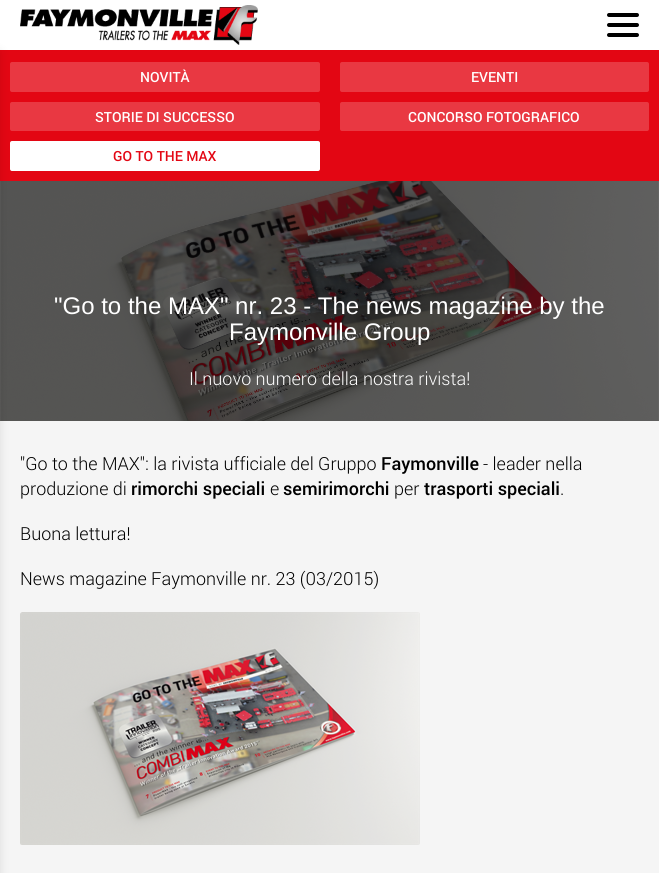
import math
import cairocffi as cairo

surface = cairo.ImageSurface(cairo.FORMAT_RGB24, 659, 873)
cr = cairo.Context(surface)
options = cairo.FontOptions()
options.set_hint_metrics(cairo.HINT_METRICS_OFF)
options.set_hint_style(cairo.HINT_STYLE_NONE)
cr.set_font_options(options)
cr.set_miter_limit(4)


def use_color(code):
    cr.set_source_rgb(*(v / 255 for v in bytes.fromhex(code[-6:])))


def round_rect(x, y, w, h, r):
    cr.new_sub_path()
    for i, (u, v) in enumerate([(x + w - r, y + h - r), (x + r, y + h - r), (x + r, y + r), (x + w - r, y + r)]):
        cr.arc(u, v, r, i * math.pi / 2, (i + 1) * math.pi / 2)
    cr.close_path()


def shadow(x, y, w, h, r, blur, alpha):
    cr.push_group_with_content(cairo.CONTENT_ALPHA)
    cr.set_operator(cairo.OPERATOR_SOURCE)
    for i in range(15, -16, -2):
        e = blur * i / 6
        if min(w, h) + 2 * e > 0:
            cr.set_source_rgba(0, 0, 0, alpha * math.erfc((i - 1) / 8.5) / 2)
            round_rect(x - e, y - e, w + 2 * e, h + 2 * e, max(0, min(r + e + blur * .6, min(w, h) / 2 + e)))
            cr.fill()
    cr.mask(cr.pop_group())


def picture(path, x, y, w, h):
    cr.save()
    cr.set_source_surface(cairo.ImageSurface.create_from_png(path), x, y)
    cr.rectangle(x, y, w, h)
    cr.fill()
    cr.restore()


use_color("#ffffff")
cr.paint()
picture("img1.png", 20, 5, 238, 40)
use_color("#000000")
round_rect(607, 13, 32, 4, 2)
cr.fill()
round_rect(607, 23, 32, 4, 2)
cr.fill()
round_rect(607, 33, 32, 4, 2)
cr.fill()
use_color("#e30613")
cr.rectangle(0, 50, 659, 131)
cr.fill()
use_color("#e93842")
round_rect(10, 62, 310, 30, 2)
cr.fill()
round_rect(10, 102, 310, 29, 2)
cr.fill()
use_color("#ffffff")
round_rect(10, 141, 310, 30, 2)
cr.fill()
picture("img2.png", 0, 181, 659, 240)
use_color("#f5f5f5")
cr.rectangle(0, 421, 659, 452)
cr.fill()
use_color("#000000")
shadow(-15, 52, 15, 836, 0, 5, 0.1)
cr.select_font_face("Roboto Medium")
cr.set_font_size(14)
use_color("#ffffff")
cr.move_to(140, 82)
cr.show_text("NOVITÀ")
use_color("#e93842")
round_rect(340, 62, 309, 30, 2)
cr.fill()
use_color("#ffffff")
cr.move_to(471, 82)
cr.show_text("EVENTI")
cr.move_to(95, 122)
cr.show_text("STORIE DI SUCCESSO")
use_color("#e93842")
round_rect(340, 102, 309, 29, 2)
cr.fill()
use_color("#ffffff")
cr.move_to(408, 122)
cr.show_text("CONCORSO FOTOGRAFICO")
use_color("#e30613")
cr.move_to(113, 161)
cr.show_text("GO TO THE MAX")
cr.select_font_face("Liberation Sans")
cr.set_font_size(24)
use_color("#ffffff")
cr.move_to(54, 314)
cr.show_text("\"Go to the MAX\" nr. 23 - The news magazine by the")
cr.move_to(229, 340)
cr.show_text("Faymonville Group")
cr.select_font_face("Roboto Light")
cr.set_font_size(18)
cr.move_to(189, 385)
cr.show_text("Il nuovo numero della nostra rivista!")
use_color("#000000")
cr.move_to(20, 470)
cr.show_text("\"Go to the MAX\": la rivista ufficiale del Gruppo")
cr.select_font_face("Roboto Medium")
cr.move_to(381, 470)
cr.show_text("Faymonville")
cr.select_font_face("Roboto Light")
cr.move_to(483, 470)
cr.show_text("- leader nella")
cr.move_to(20, 495)
cr.show_text("produzione di")
cr.select_font_face("Roboto Medium")
cr.move_to(131, 495)
cr.show_text("rimorchi speciali")
cr.select_font_face("Roboto Light")
cr.move_to(270, 495)
cr.show_text("e")
cr.select_font_face("Roboto Medium")
cr.move_to(283, 495)
cr.show_text("semirimorchi")
cr.select_font_face("Roboto Light")
cr.move_to(394, 495)
cr.show_text("per")
cr.select_font_face("Roboto Medium")
cr.move_to(424, 495)
cr.show_text("trasporti speciali")
cr.select_font_face("Roboto Light")
cr.move_to(560, 495)
cr.show_text(".")
cr.move_to(20, 540)
cr.show_text("Buona lettura!")
cr.move_to(20, 585)
cr.show_text("News magazine Faymonville nr. 23 (03/2015)")
picture("img3.png", 20, 612, 400, 233)
surface.write_to_png("result.png")
